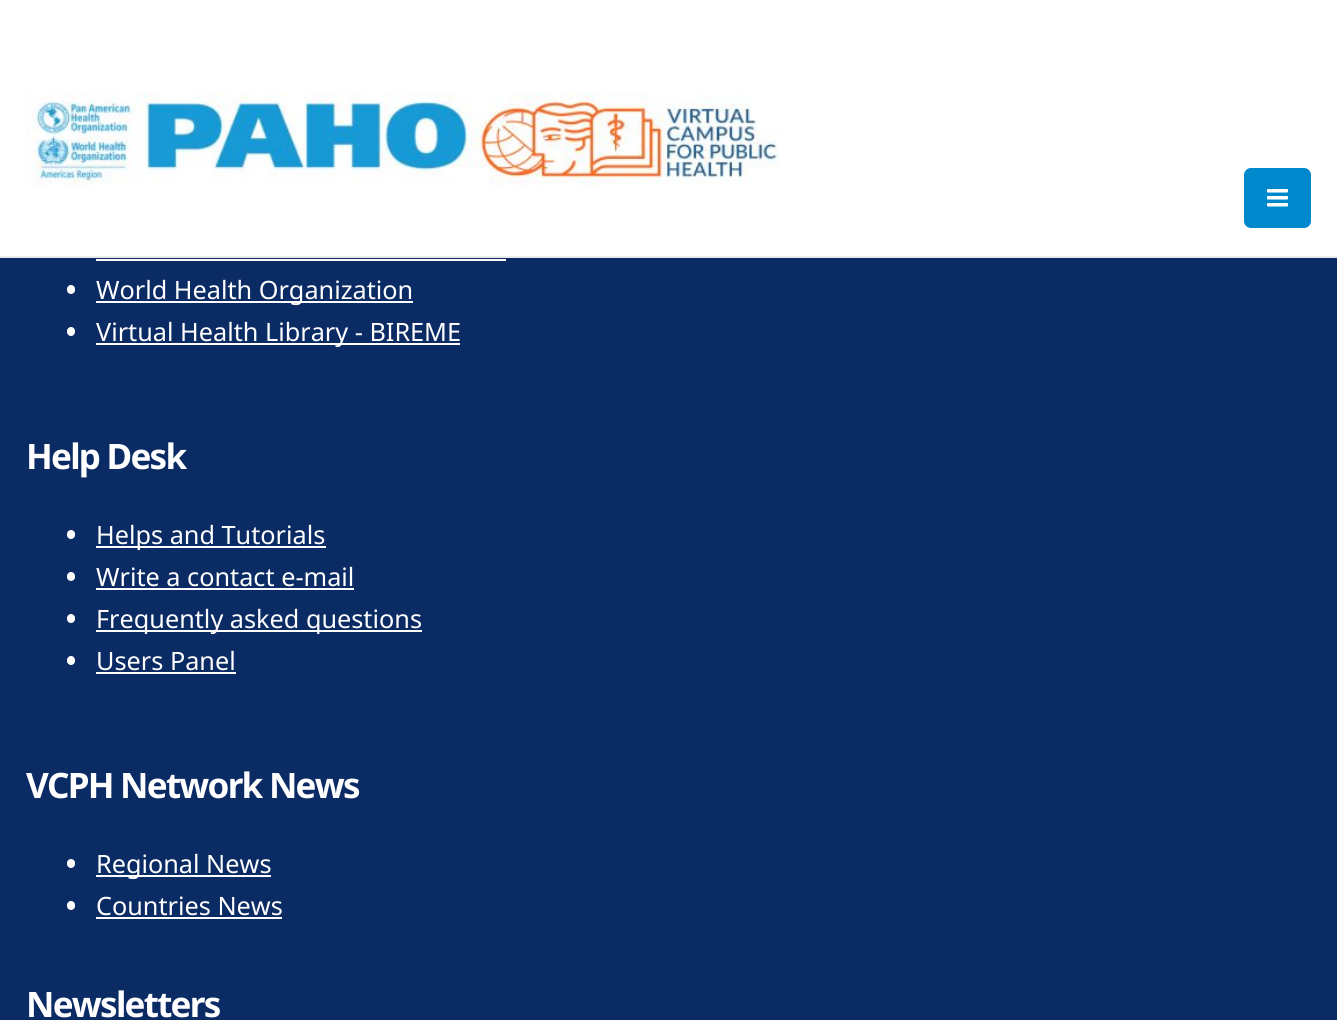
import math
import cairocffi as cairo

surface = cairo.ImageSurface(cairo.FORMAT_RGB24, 1337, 1020)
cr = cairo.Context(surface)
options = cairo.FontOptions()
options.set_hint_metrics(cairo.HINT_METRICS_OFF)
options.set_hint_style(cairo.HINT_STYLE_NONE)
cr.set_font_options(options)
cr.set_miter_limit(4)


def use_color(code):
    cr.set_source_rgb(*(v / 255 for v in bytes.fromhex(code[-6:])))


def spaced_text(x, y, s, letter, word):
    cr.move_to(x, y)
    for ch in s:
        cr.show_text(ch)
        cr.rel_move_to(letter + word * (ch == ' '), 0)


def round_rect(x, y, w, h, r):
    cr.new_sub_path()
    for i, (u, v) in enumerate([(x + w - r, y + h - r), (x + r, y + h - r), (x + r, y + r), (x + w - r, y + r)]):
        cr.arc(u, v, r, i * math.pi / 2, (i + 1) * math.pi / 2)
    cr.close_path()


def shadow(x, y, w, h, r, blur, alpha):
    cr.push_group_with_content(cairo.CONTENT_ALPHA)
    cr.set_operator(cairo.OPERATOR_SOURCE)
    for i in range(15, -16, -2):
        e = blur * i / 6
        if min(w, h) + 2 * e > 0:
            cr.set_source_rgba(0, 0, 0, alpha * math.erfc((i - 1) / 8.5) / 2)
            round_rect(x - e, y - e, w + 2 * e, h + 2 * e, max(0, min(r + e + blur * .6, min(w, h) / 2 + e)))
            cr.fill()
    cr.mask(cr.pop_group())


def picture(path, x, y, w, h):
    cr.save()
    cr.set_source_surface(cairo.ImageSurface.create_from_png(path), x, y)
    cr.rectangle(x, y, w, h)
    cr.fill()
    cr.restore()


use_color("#0b2b64")
cr.paint()
use_color("#ffffff")
cr.rectangle(96, 259, 410, 2)
cr.fill()
use_color("#000000")
shadow(0, -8, 1337, 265, 0, 2.5, 0.1)
use_color("#ffffff")
cr.rectangle(0, 0, 1337, 256)
cr.fill()
use_color("#e9e9e9")
cr.rectangle(0, 256, 1337, 2)
cr.fill()
picture("img1.png", 26, 93, 754, 93)
use_color("#0088cc")
round_rect(1244, 168, 67, 60, 7)
cr.fill()
picture("img2.png", 1267, 189, 21, 18)
use_color("#ffffff")
round_rect(67, 285, 8, 9, 4)
cr.fill()
cr.rectangle(96, 301, 317, 2)
cr.fill()
cr.select_font_face("Noto Sans")
cr.set_font_size(25.25)
cr.move_to(96, 299)
cr.show_text("World Health Organization")
round_rect(67, 327, 8, 9, 4)
cr.fill()
cr.rectangle(96, 343, 364, 2)
cr.fill()
cr.move_to(96, 341)
cr.show_text("Virtual Health Library - BIREME")
cr.select_font_face("Noto Sans", cairo.FONT_SLANT_NORMAL, cairo.FONT_WEIGHT_BOLD)
cr.set_font_size(35)
spaced_text(26, 469, "Help Desk", -1.75, 0)
round_rect(67, 530, 8, 9, 4)
cr.fill()
cr.rectangle(96, 546, 230, 2)
cr.fill()
cr.select_font_face("Noto Sans")
cr.set_font_size(25.25)
cr.move_to(96, 544)
cr.show_text("Helps and Tutorials")
round_rect(67, 572, 8, 9, 4)
cr.fill()
cr.move_to(96, 586)
cr.show_text("Write a contact e-mail")
cr.rectangle(96, 588, 258, 2)
cr.fill()
round_rect(67, 614, 8, 9, 4)
cr.fill()
cr.rectangle(96, 630, 326, 2)
cr.fill()
cr.move_to(96, 628)
cr.show_text("Frequently asked questions")
round_rect(67, 656, 8, 9, 4)
cr.fill()
cr.move_to(96, 670)
cr.show_text("Users Panel")
cr.rectangle(96, 672, 140, 2)
cr.fill()
cr.select_font_face("Noto Sans", cairo.FONT_SLANT_NORMAL, cairo.FONT_WEIGHT_BOLD)
cr.set_font_size(35)
spaced_text(26, 798, "VCPH Network News", -1.75, 0)
round_rect(67, 859, 8, 9, 4)
cr.fill()
cr.rectangle(96, 875, 175, 2)
cr.fill()
cr.select_font_face("Noto Sans")
cr.set_font_size(25.25)
cr.move_to(96, 873)
cr.show_text("Regional News")
round_rect(67, 901, 8, 9, 4)
cr.fill()
cr.move_to(96, 915)
cr.show_text("Countries News")
cr.rectangle(96, 917, 186, 2)
cr.fill()
cr.select_font_face("Noto Sans", cairo.FONT_SLANT_NORMAL, cairo.FONT_WEIGHT_BOLD)
cr.set_font_size(35)
spaced_text(26, 1017, "Newsletters", -1.75, 0)
surface.write_to_png("result.png")
